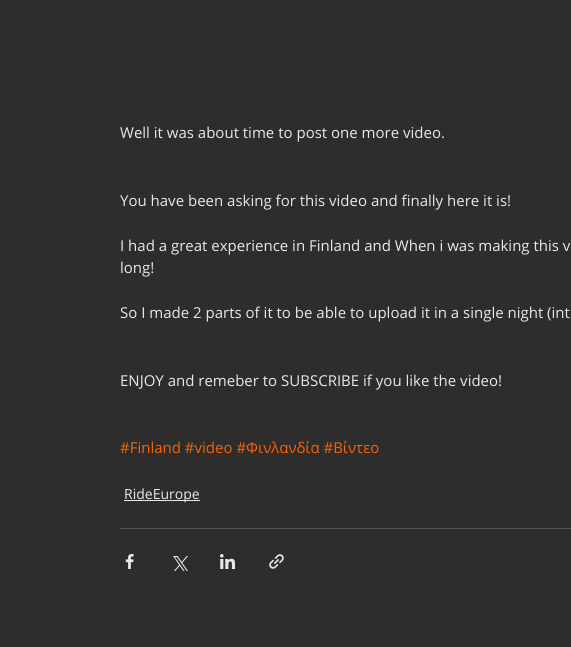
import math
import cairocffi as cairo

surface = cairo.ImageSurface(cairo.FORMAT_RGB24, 571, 647)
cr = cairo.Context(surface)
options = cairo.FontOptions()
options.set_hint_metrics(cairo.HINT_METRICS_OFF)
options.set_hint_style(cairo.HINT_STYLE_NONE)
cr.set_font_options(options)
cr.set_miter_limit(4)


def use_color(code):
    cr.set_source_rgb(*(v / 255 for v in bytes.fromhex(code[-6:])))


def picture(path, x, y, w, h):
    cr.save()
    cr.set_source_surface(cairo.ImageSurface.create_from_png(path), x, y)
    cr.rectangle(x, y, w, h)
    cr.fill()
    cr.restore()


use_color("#2d2d2d")
cr.paint()
cr.select_font_face("Open Sans")
cr.set_font_size(15)
use_color("#e8e8e8")
cr.move_to(120, 138)
cr.show_text("Well it was about time to post one more video.")
cr.move_to(120, 206)
cr.show_text("You have been asking for this video and finally here it is!")
cr.move_to(120, 251)
cr.show_text("I had a great experience in Finland and When i was making this v")
cr.move_to(120, 273)
cr.show_text("long!")
cr.move_to(120, 318)
cr.show_text("So I made 2 parts of it to be able to upload it in a single night (int")
cr.move_to(120, 386)
cr.show_text("ENJOY and remeber to SUBSCRIBE if you like the video!")
use_color("#fc6000")
cr.move_to(120, 453)
cr.show_text("#Finland #video #Φινλανδία #Βίντεο")
use_color("#e8e8e8")
cr.rectangle(124, 500, 76, 1)
cr.fill()
cr.set_font_size(14)
cr.move_to(124, 499)
cr.show_text("RideEurope")
use_color("#525252")
cr.rectangle(120, 528, 451, 1)
cr.fill()
picture("img1.png", 125, 554, 9, 15)
picture("img2.png", 173, 556, 15, 15)
picture("img3.png", 220, 554, 15, 15)
picture("img4.png", 269, 554, 15, 15)
surface.write_to_png("result.png")
